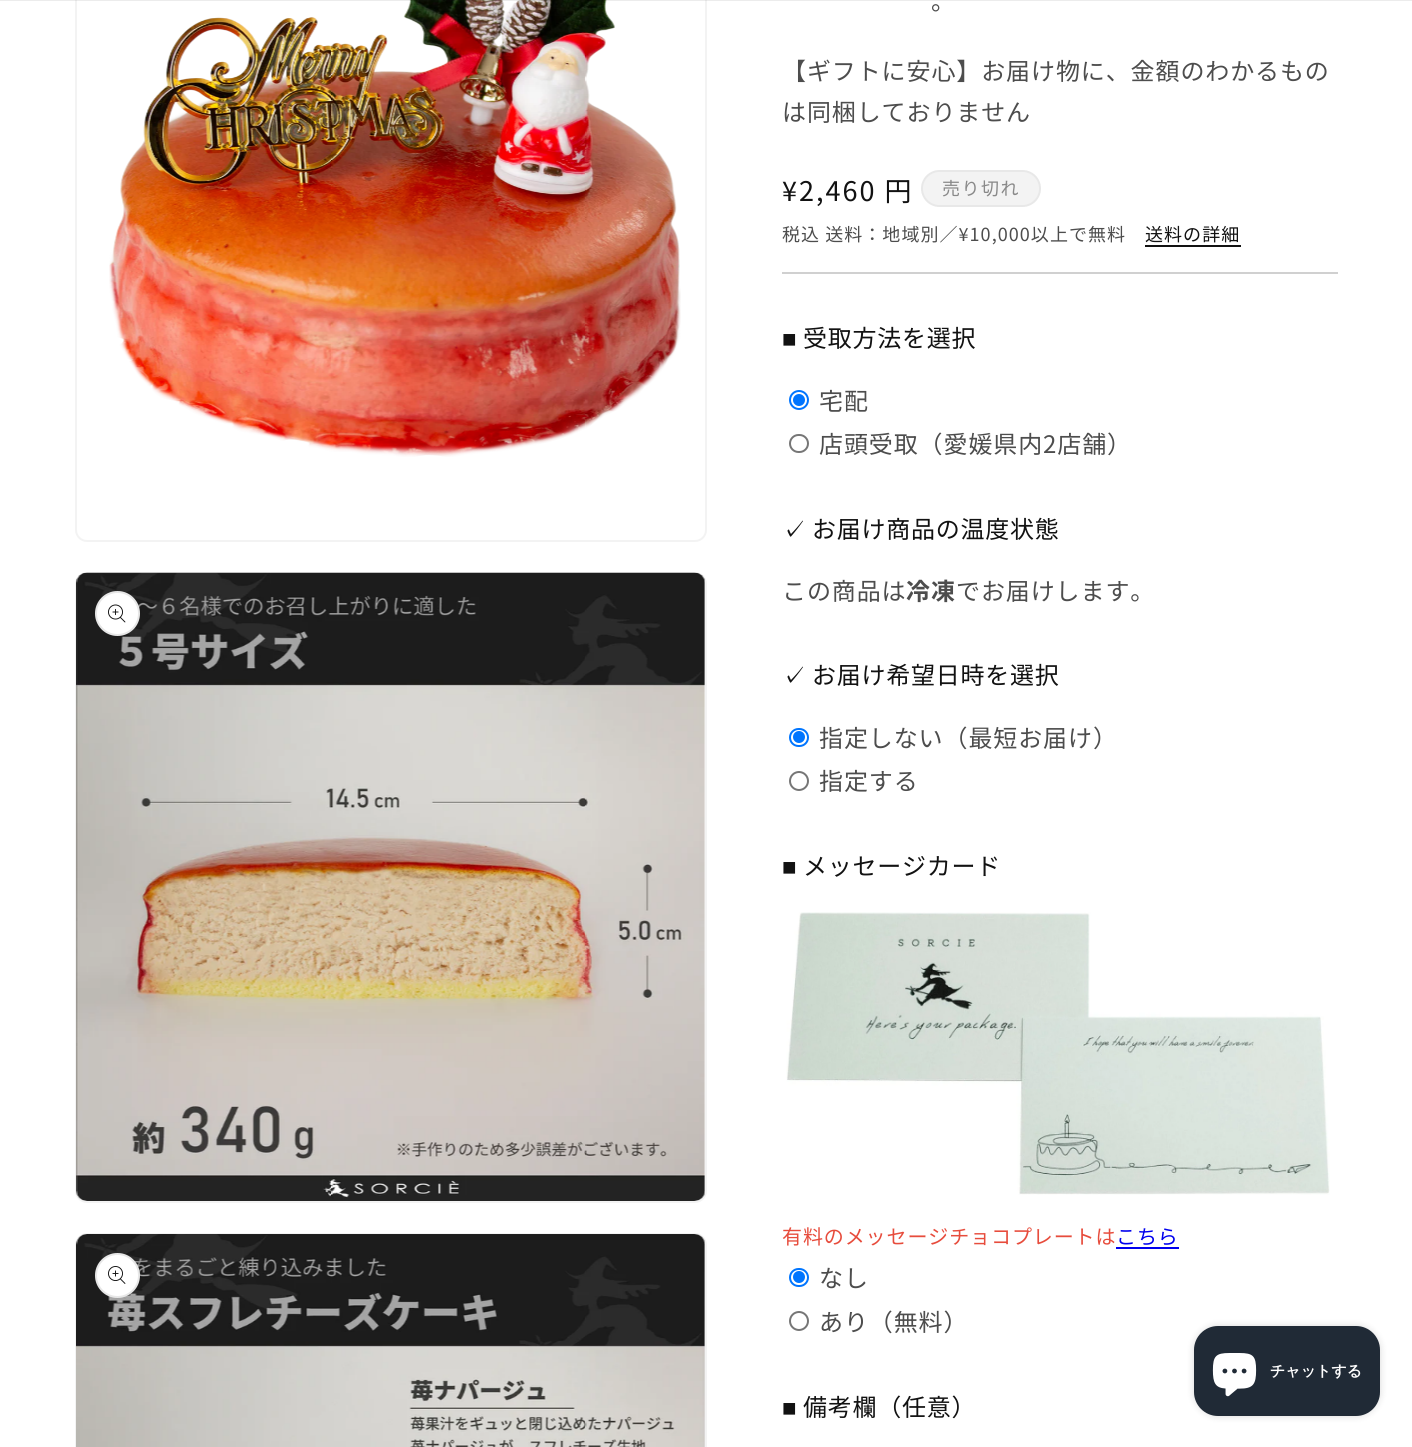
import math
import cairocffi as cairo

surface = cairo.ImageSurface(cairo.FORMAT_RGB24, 1412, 1447)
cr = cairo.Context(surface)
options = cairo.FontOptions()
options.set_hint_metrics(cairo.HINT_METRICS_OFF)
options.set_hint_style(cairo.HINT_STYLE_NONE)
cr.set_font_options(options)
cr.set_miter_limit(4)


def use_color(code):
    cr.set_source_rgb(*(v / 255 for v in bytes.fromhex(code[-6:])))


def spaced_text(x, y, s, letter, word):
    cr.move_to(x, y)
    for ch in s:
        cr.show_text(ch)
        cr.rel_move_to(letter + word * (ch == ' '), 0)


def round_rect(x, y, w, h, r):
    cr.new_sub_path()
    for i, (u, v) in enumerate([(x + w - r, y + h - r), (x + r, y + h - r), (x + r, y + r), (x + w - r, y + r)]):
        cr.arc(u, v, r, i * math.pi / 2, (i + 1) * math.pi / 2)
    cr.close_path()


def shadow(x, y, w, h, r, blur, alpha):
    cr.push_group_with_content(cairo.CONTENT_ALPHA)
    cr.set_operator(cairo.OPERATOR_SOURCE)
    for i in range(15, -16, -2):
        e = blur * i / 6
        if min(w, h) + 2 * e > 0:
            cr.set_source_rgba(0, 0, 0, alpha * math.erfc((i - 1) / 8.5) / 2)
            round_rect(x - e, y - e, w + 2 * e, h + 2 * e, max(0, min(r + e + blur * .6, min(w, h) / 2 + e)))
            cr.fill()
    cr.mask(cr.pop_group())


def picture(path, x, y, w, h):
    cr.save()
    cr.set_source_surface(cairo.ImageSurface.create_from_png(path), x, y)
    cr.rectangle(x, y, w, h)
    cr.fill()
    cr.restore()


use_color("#ffffff")
cr.paint()
round_rect(76, -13, 630, 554, 11)
use_color("#f3f3f3")
cr.stroke()
picture("img1.png", 109, 0, 572, 457)
cr.set_source_rgba(0.071, 0.071, 0.071, 0.08)
cr.rectangle(0, 0, 1412, 1)
cr.fill()
round_rect(76, 573, 630, 629, 11)
use_color("#f3f3f3")
cr.stroke()
picture("img2.png", 76, 572, 629, 629)
use_color("#ffffff")
cr.arc(117.5, 613.5, 22.5, 0, 2 * math.pi)
cr.fill()
cr.arc(117.5, 613.5, 21.5, 0, 2 * math.pi)
cr.set_source_rgba(0.071, 0.071, 0.071, 0.1)
cr.stroke()
picture("img3.png", 108, 604, 18, 19)
round_rect(76, 1234, 630, 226, 11)
use_color("#f3f3f3")
cr.stroke()
picture("img4.png", 76, 1234, 629, 213)
use_color("#ffffff")
cr.arc(117.5, 1275.5, 22.5, 0, 2 * math.pi)
cr.fill()
cr.arc(117.5, 1275.5, 21.5, 0, 2 * math.pi)
cr.set_source_rgba(0.071, 0.071, 0.071, 0.1)
cr.stroke()
picture("img5.png", 108, 1266, 18, 18)
cr.select_font_face("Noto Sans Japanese")
cr.set_font_size(24)
use_color("#4d4d4d")
spaced_text(931, 10, "。", 0.9, 0)
spaced_text(782, 80, "【ギフトに安心】お届け物に、金額のわかるもの", 0.9, 0)
spaced_text(782, 121, "は同梱しておりません", 0.9, 0)
cr.set_font_size(27)
use_color("#121212")
spaced_text(782, 201, "¥2,460 円", 2, 0)
use_color("#f3f3f3")
round_rect(921, 170, 120, 37, 18.5)
cr.fill()
round_rect(922, 171, 118, 35, 17.5)
cr.set_source_rgba(0.537, 0.537, 0.537, 0.1)
cr.stroke()
cr.set_font_size(18)
use_color("#898989")
spaced_text(942, 195, "売り切れ", 1.5, 0)
use_color("#4d4d4d")
spaced_text(782, 241, "税込 送料：地域別／¥10,000以上で無料", 1.05, 0)
use_color("#121212")
spaced_text(1145, 241, "送料の詳細", 1.05, 0)
cr.rectangle(1145, 245, 96, 2)
cr.fill()
use_color("#d0d0d0")
cr.rectangle(782, 272, 556, 2)
cr.fill()
cr.select_font_face("Liberation Sans")
cr.set_font_size(24)
use_color("#121212")
spaced_text(782, 347, "■", 0.75, 0)
cr.select_font_face("Noto Sans Japanese")
spaced_text(803, 347, "受取方法を選択", 0.75, 0)
cr.new_path()
cr.arc(799, 400, 9, 0, 2 * math.pi)
use_color("#0075ff")
cr.stroke()
cr.arc(799, 400, 6, 0, 2 * math.pi)
cr.fill()
use_color("#4d4d4d")
spaced_text(819, 410, "宅配", 0.9, 0)
round_rect(790, 435, 18, 17, 8.5)
use_color("#767676")
cr.stroke()
use_color("#4d4d4d")
spaced_text(819, 453, "店頭受取（愛媛県内2店舗）", 0.9, 0)
cr.select_font_face("IPAPGothic")
use_color("#121212")
spaced_text(782, 538, "✓", 0.75, 0)
cr.select_font_face("Noto Sans Japanese")
spaced_text(812, 538, "お届け商品の温度状態", 0.75, 0)
use_color("#4d4d4d")
spaced_text(782, 600, "この商品は", 0.9, 0)
cr.select_font_face("Noto Sans Japanese", cairo.FONT_SLANT_NORMAL, cairo.FONT_WEIGHT_BOLD)
spaced_text(906, 600, "冷凍", 0.9, 0)
cr.select_font_face("Noto Sans Japanese")
spaced_text(956, 600, "でお届けします。", 0.9, 0)
cr.select_font_face("IPAPGothic")
use_color("#121212")
spaced_text(782, 684, "✓", 0.75, 0)
cr.select_font_face("Noto Sans Japanese")
spaced_text(812, 684, "お届け希望日時を選択", 0.75, 0)
round_rect(790, 729, 18, 17, 8.5)
use_color("#0075ff")
cr.stroke()
cr.arc(799, 737, 6, 0, 2 * math.pi)
cr.fill()
use_color("#4d4d4d")
spaced_text(819, 747, "指定しない（最短お届け）", 0.9, 0)
cr.new_path()
cr.arc(799, 781, 9, 0, 2 * math.pi)
use_color("#767676")
cr.stroke()
use_color("#4d4d4d")
spaced_text(819, 790, "指定する", 0.9, 0)
cr.select_font_face("Liberation Sans")
use_color("#121212")
spaced_text(782, 875, "■", 0.75, 0)
cr.select_font_face("Noto Sans Japanese")
spaced_text(803, 875, "メッセージカード", 0.75, 0)
picture("img6.png", 786, 912, 544, 283)
cr.set_font_size(20)
use_color("#e74c3c")
spaced_text(782, 1244, "有料のメッセージチョコプレートは", 0.9, 0)
use_color("#0000ee")
spaced_text(1116, 1244, "こちら", 0.9, 0)
cr.rectangle(1116, 1247, 63, 2)
cr.fill()
round_rect(790, 1269, 18, 17, 8.5)
use_color("#0075ff")
cr.stroke()
cr.arc(799, 1277, 6, 0, 2 * math.pi)
cr.fill()
cr.set_font_size(24)
use_color("#4d4d4d")
spaced_text(819, 1287, "なし", 0.9, 0)
cr.new_path()
cr.arc(799, 1321, 9, 0, 2 * math.pi)
use_color("#767676")
cr.stroke()
use_color("#4d4d4d")
spaced_text(819, 1331, "あり（無料）", 0.9, 0)
cr.select_font_face("Liberation Sans")
use_color("#121212")
spaced_text(782, 1416, "■", 0.75, 0)
cr.select_font_face("Noto Sans Japanese")
spaced_text(803, 1416, "備考欄（任意）", 0.75, 0)
use_color("#000000")
shadow(1194, 1326, 186, 90, 24, 4, 0.15)
use_color("#202a36")
round_rect(1194, 1326, 186, 90, 24)
cr.fill()
picture("img7.png", 1212, 1353, 45, 44)
cr.select_font_face("WenQuanYi Zen Hei", cairo.FONT_SLANT_NORMAL, cairo.FONT_WEIGHT_BOLD)
cr.set_font_size(15)
use_color("#ffffff")
cr.move_to(1270, 1376)
cr.show_text("チャットする")
surface.write_to_png("result.png")
